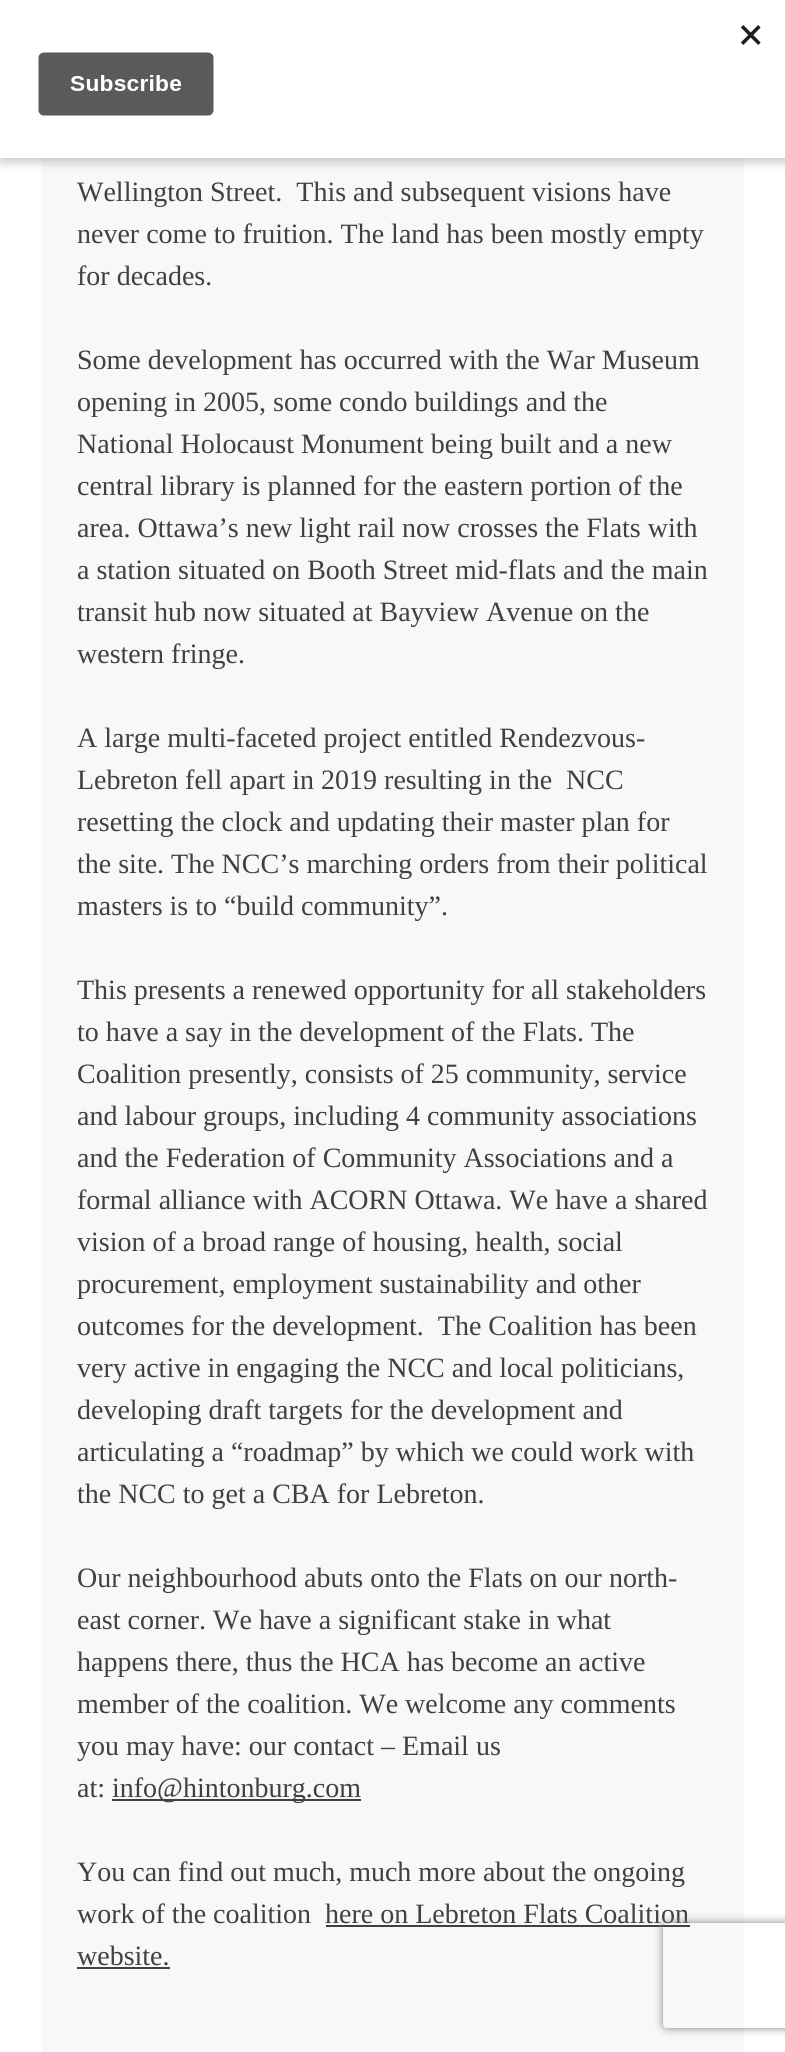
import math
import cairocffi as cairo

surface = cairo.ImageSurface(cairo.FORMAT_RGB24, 785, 2052)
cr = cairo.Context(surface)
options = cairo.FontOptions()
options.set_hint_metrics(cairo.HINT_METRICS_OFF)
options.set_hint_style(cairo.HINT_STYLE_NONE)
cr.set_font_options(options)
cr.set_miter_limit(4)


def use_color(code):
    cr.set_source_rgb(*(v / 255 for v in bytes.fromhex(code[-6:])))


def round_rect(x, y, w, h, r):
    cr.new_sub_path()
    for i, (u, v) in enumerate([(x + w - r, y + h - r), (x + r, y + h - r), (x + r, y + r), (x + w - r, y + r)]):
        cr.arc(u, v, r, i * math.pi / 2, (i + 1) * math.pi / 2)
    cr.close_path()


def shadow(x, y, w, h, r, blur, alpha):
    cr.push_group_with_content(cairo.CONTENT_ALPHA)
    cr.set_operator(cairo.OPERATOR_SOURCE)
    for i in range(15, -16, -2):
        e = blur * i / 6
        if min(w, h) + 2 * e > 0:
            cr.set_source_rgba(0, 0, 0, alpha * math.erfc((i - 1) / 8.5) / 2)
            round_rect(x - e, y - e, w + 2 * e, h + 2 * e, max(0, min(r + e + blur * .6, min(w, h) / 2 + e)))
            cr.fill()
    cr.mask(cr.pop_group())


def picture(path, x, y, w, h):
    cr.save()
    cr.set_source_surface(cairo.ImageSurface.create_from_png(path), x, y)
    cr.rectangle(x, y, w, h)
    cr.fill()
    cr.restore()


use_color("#ffffff")
cr.paint()
use_color("#f8f8f8")
cr.rectangle(42, 158, 702, 1894)
cr.fill()
use_color("#000000")
shadow(0, 5, 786, 158, 0, 5, 0.2)
use_color("#ffffff")
cr.rectangle(0, 0, 785, 158)
cr.fill()
picture("img1.png", 38, 25, 723, 91)
cr.select_font_face("Liberation Serif")
cr.set_font_size(28)
use_color("#404040")
cr.move_to(77, 201)
cr.show_text("Wellington Street.  This and subsequent visions have")
cr.move_to(77, 243)
cr.show_text("never come to fruition. The land has been mostly empty")
cr.move_to(77, 285)
cr.show_text("for decades.")
cr.move_to(77, 369)
cr.show_text("Some development has occurred with the War Museum")
cr.move_to(77, 411)
cr.show_text("opening in 2005, some condo buildings and the")
cr.move_to(77, 453)
cr.show_text("National Holocaust Monument being built and a new")
cr.move_to(77, 495)
cr.show_text("central library is planned for the eastern portion of the")
cr.move_to(77, 537)
cr.show_text("area. Ottawa’s new light rail now crosses the Flats with")
cr.move_to(77, 579)
cr.show_text("a station situated on Booth Street mid-flats and the main")
cr.move_to(77, 621)
cr.show_text("transit hub now situated at Bayview Avenue on the")
cr.move_to(77, 663)
cr.show_text("western fringe.")
cr.move_to(77, 747)
cr.show_text("A large multi-faceted project entitled Rendezvous-")
cr.move_to(77, 789)
cr.show_text("Lebreton fell apart in 2019 resulting in the  NCC")
cr.move_to(77, 831)
cr.show_text("resetting the clock and updating their master plan for")
cr.move_to(77, 873)
cr.show_text("the site. The NCC’s marching orders from their political")
cr.move_to(77, 915)
cr.show_text("masters is to “build community”.")
cr.move_to(77, 999)
cr.show_text("This presents a renewed opportunity for all stakeholders")
cr.move_to(77, 1041)
cr.show_text("to have a say in the development of the Flats. The")
cr.move_to(77, 1083)
cr.show_text("Coalition presently, consists of 25 community, service")
cr.move_to(77, 1125)
cr.show_text("and labour groups, including 4 community associations")
cr.move_to(77, 1167)
cr.show_text("and the Federation of Community Associations and a")
cr.move_to(77, 1209)
cr.show_text("formal alliance with ACORN Ottawa. We have a shared")
cr.move_to(77, 1251)
cr.show_text("vision of a broad range of housing, health, social")
cr.move_to(77, 1293)
cr.show_text("procurement, employment sustainability and other")
cr.move_to(77, 1335)
cr.show_text("outcomes for the development.  The Coalition has been")
cr.move_to(77, 1377)
cr.show_text("very active in engaging the NCC and local politicians,")
cr.move_to(77, 1419)
cr.show_text("developing draft targets for the development and")
cr.move_to(77, 1461)
cr.show_text("articulating a “roadmap” by which we could work with")
cr.move_to(77, 1503)
cr.show_text("the NCC to get a CBA for Lebreton.")
cr.move_to(77, 1587)
cr.show_text("Our neighbourhood abuts onto the Flats on our north-")
cr.move_to(77, 1629)
cr.show_text("east corner. We have a significant stake in what")
cr.move_to(77, 1671)
cr.show_text("happens there, thus the HCA has become an active")
cr.move_to(77, 1713)
cr.show_text("member of the coalition. We welcome any comments")
cr.move_to(77, 1755)
cr.show_text("you may have: our contact – Email us")
cr.move_to(77, 1797)
cr.show_text("at:")
cr.rectangle(112, 1799, 249, 2)
cr.fill()
cr.move_to(112, 1797)
cr.show_text("info@hintonburg.com")
cr.move_to(77, 1881)
cr.show_text("You can find out much, much more about the ongoing")
cr.move_to(77, 1923)
cr.show_text("work of the coalition")
cr.move_to(325, 1923)
cr.show_text("here on Lebreton Flats Coalition")
cr.rectangle(326, 1925, 364, 2)
cr.fill()
cr.move_to(77, 1965)
cr.show_text("website.")
cr.rectangle(77, 1967, 93, 2)
cr.fill()
cr.save()
cr.set_fill_rule(cairo.FILL_RULE_EVEN_ODD)
cr.new_path()
cr.move_to(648, 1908)
cr.line_to(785, 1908)
cr.line_to(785, 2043)
cr.line_to(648, 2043)
cr.close_path()
cr.move_to(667, 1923)
cr.line_to(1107, 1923)
cr.curve_to(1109, 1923, 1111, 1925, 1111, 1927)
cr.line_to(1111, 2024)
cr.curve_to(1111, 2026, 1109, 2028, 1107, 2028)
cr.line_to(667, 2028)
cr.curve_to(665, 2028, 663, 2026, 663, 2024)
cr.line_to(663, 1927)
cr.curve_to(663, 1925, 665, 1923, 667, 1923)
cr.close_path()
cr.clip()
use_color("#808080")
shadow(663, 1923, 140, 105, 4, 4.5, 1)
cr.restore()
surface.write_to_png("result.png")
